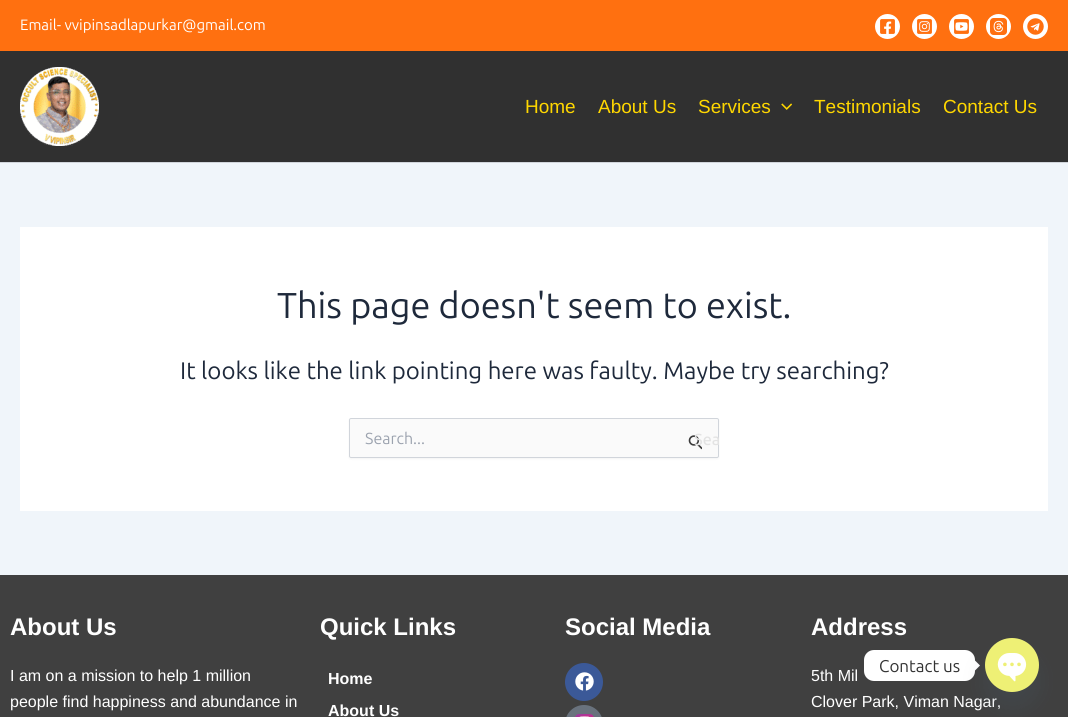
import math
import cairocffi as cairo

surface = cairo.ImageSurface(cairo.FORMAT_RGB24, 1068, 717)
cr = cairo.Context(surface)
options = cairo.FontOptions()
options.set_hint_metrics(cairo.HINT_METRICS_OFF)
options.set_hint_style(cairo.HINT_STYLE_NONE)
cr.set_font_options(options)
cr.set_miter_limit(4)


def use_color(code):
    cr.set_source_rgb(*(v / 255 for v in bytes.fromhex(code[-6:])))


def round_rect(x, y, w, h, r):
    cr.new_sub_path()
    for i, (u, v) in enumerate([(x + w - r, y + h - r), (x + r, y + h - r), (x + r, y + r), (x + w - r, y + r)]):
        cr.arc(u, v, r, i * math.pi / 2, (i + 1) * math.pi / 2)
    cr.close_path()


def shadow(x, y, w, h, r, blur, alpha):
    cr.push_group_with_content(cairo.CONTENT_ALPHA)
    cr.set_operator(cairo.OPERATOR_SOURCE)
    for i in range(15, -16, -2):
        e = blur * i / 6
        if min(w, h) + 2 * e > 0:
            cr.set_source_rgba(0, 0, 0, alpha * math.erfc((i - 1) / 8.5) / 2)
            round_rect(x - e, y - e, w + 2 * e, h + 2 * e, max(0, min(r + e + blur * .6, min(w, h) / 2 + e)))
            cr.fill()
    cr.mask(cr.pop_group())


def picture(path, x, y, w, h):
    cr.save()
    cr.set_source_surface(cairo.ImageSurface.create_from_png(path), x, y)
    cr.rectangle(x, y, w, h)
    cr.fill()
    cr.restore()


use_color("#f0f5fa")
cr.paint()
use_color("#ff7010")
cr.rectangle(0, 0, 1068, 51)
cr.fill()
cr.select_font_face("Ubuntu")
cr.set_font_size(15)
use_color("#ffffff")
cr.move_to(20, 30)
cr.show_text("Email- vvipinsadlapurkar@gmail.com")
cr.new_path()
cr.arc(887.5, 26.5, 12.5, 0, 2 * math.pi)
cr.fill()
picture("img1.png", 880, 19, 15, 15)
cr.arc(924.5, 26.5, 12.5, 0, 2 * math.pi)
cr.fill()
picture("img2.png", 917, 19, 15, 15)
cr.arc(961.5, 26.5, 12.5, 0, 2 * math.pi)
cr.fill()
picture("img3.png", 954, 19, 15, 15)
cr.arc(998.5, 26.5, 12.5, 0, 2 * math.pi)
cr.fill()
picture("img4.png", 990, 18, 17, 17)
cr.arc(1035.5, 26.5, 12.5, 0, 2 * math.pi)
cr.fill()
picture("img5.png", 1027, 18, 17, 17)
use_color("#303030")
cr.rectangle(0, 51, 1068, 111)
cr.fill()
use_color("#d1d5db")
cr.rectangle(0, 162, 1068, 1)
cr.fill()
picture("img6.png", 20, 67, 79, 79)
cr.select_font_face("Liberation Sans")
cr.set_font_size(19)
use_color("#ffd700")
cr.move_to(525, 113)
cr.show_text("Home")
cr.move_to(598, 113)
cr.show_text("About Us")
cr.move_to(698, 113)
cr.show_text("Services")
picture("img7.png", 781, 103, 11, 7)
cr.move_to(814, 113)
cr.show_text("Testimonials")
cr.move_to(943, 113)
cr.show_text("Contact Us")
use_color("#ffffff")
cr.rectangle(20, 227, 1028, 284)
cr.fill()
cr.select_font_face("Ubuntu")
cr.set_font_size(36)
use_color("#1e293b")
cr.move_to(277, 318)
cr.show_text("This page doesn't seem to exist.")
cr.set_font_size(24)
cr.move_to(180, 379)
cr.show_text("It looks like the link pointing here was faulty. Maybe try searching?")
use_color("#000000")
shadow(349, 419, 370, 40, 2, 1, 0.05)
use_color("#fafafa")
round_rect(349.5, 418.5, 369, 39, 1.5)
cr.fill_preserve()
use_color("#d1d5db")
cr.set_line_width(1)
cr.stroke()
cr.set_font_size(16)
use_color("#9ca3af")
cr.move_to(365, 444)
cr.show_text("Search...")
picture("img8.png", 688, 435, 14, 15)
cr.select_font_face("Ubuntu Medium")
use_color("#e3e3e3")
cr.move_to(694, 445)
cr.show_text("Sea")
use_color("#404040")
cr.rectangle(0, 575, 1068, 142)
cr.fill()
cr.select_font_face("Liberation Sans", cairo.FONT_SLANT_NORMAL, cairo.FONT_WEIGHT_BOLD)
cr.set_font_size(24)
use_color("#ffffff")
cr.move_to(10, 635)
cr.show_text("About Us")
cr.select_font_face("Liberation Sans")
cr.set_font_size(16)
cr.move_to(10, 681)
cr.show_text("I am on a mission to help 1 million")
cr.move_to(10, 707)
cr.show_text("people find happiness and abundance in")
cr.select_font_face("Liberation Sans", cairo.FONT_SLANT_NORMAL, cairo.FONT_WEIGHT_BOLD)
cr.set_font_size(24)
cr.move_to(320, 635)
cr.show_text("Quick Links")
cr.set_font_size(16)
cr.move_to(328, 684)
cr.show_text("Home")
cr.move_to(328, 716)
cr.show_text("About Us")
cr.set_font_size(24)
cr.move_to(565, 635)
cr.show_text("Social Media")
use_color("#3b5998")
cr.new_path()
cr.arc(584, 682, 19, 0, 2 * math.pi)
cr.fill()
picture("img9.png", 575, 672, 19, 19)
use_color("#69727d")
round_rect(565, 705, 38, 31, 19)
cr.fill()
picture("img10.png", 575, 714, 19, 3)
use_color("#ffffff")
cr.move_to(811, 635)
cr.show_text("Address")
cr.select_font_face("Liberation Sans")
cr.set_font_size(16)
cr.move_to(811, 681)
cr.show_text("5th Mil")
cr.move_to(811, 707)
cr.show_text("Clover Park, Viman Nagar,")
round_rect(864, 650, 111, 31, 10)
cr.fill()
cr.select_font_face("Ubuntu")
cr.set_font_size(17)
use_color("#333333")
cr.move_to(879, 672)
cr.show_text("Contact us")
use_color("#ffffff")
cr.new_path()
cr.move_to(975, 670.5)
cr.line_to(975, 660.5)
cr.line_to(980, 665.5)
cr.close_path()
cr.fill()
use_color("#49687e")
shadow(985, 654, 54, 54, 27, 12, 0.16)
picture("img11.png", 985, 638, 54, 54)
surface.write_to_png("result.png")
